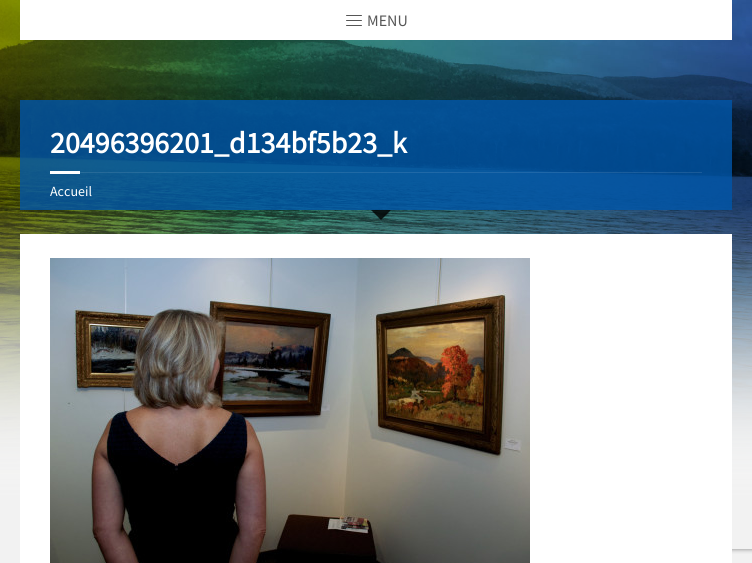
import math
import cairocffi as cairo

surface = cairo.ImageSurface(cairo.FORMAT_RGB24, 752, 563)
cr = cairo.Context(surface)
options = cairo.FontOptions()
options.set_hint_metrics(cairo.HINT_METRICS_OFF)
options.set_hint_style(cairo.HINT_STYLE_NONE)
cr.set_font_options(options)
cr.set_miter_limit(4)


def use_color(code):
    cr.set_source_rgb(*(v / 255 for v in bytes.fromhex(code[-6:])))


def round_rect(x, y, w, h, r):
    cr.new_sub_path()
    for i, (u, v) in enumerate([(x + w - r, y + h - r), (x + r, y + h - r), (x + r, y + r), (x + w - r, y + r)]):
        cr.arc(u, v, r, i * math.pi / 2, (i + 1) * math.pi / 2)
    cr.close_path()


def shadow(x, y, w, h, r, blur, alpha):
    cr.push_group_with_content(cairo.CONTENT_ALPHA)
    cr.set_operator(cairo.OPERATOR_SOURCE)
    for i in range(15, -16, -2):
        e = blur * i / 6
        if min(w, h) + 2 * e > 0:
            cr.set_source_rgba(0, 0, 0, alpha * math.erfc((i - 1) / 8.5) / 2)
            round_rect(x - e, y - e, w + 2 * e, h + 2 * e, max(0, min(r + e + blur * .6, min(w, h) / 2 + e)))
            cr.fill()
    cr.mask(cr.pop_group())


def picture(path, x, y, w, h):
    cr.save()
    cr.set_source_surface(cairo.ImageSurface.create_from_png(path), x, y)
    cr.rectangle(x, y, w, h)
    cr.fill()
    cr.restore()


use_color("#f2f2f2")
cr.paint()
cr.save()
cr.rectangle(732, 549, 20, 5)
cr.clip()
use_color("#808080")
shadow(682, 489, 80, 60, 2, 2.5, 1)
cr.restore()
use_color("#ffffff")
cr.rectangle(0, 476, 752, 22)
cr.fill()
picture("img1.png", 0, 0, 752, 476)
gradient = cairo.LinearGradient(376, 200, 376, 500)
gradient.add_color_stop_rgba(0, 0.949, 0.949, 0.949, 0)
gradient.add_color_stop_rgba(1, 0.949, 0.949, 0.949, 1)
cr.set_source(gradient)
cr.rectangle(0, 206, 752, 294)
cr.fill()
use_color("#ffffff")
cr.rectangle(20, 0, 712, 40)
cr.fill()
picture("img2.png", 346, 15, 16, 11)
cr.select_font_face("Source Sans Pro")
cr.set_font_size(16)
use_color("#565656")
cr.move_to(367, 26)
cr.show_text("MENU")
cr.set_source_rgba(0, 0.341, 0.667, 0.8)
cr.rectangle(20, 100, 712, 110)
cr.fill()
cr.set_source_rgba(1, 1, 1, 0.1)
cr.rectangle(80, 172, 622, 1)
cr.fill()
cr.select_font_face("Source Sans Pro", cairo.FONT_SLANT_NORMAL, cairo.FONT_WEIGHT_BOLD)
cr.set_font_size(30)
use_color("#ffffff")
cr.move_to(50, 153)
cr.show_text("20496396201_d134bf5b23_k")
cr.rectangle(50, 171, 30, 3)
cr.fill()
cr.select_font_face("Source Sans Pro")
cr.set_font_size(14)
cr.move_to(50, 196)
cr.show_text("Accueil")
cr.set_source_rgba(0, 0, 0, 0.8)
cr.new_path()
cr.move_to(371, 210)
cr.line_to(391, 210)
cr.line_to(381, 220)
cr.close_path()
cr.fill()
use_color("#ffffff")
cr.rectangle(20, 234, 712, 329)
cr.fill()
picture("img3.png", 50, 258, 480, 305)
surface.write_to_png("result.png")
